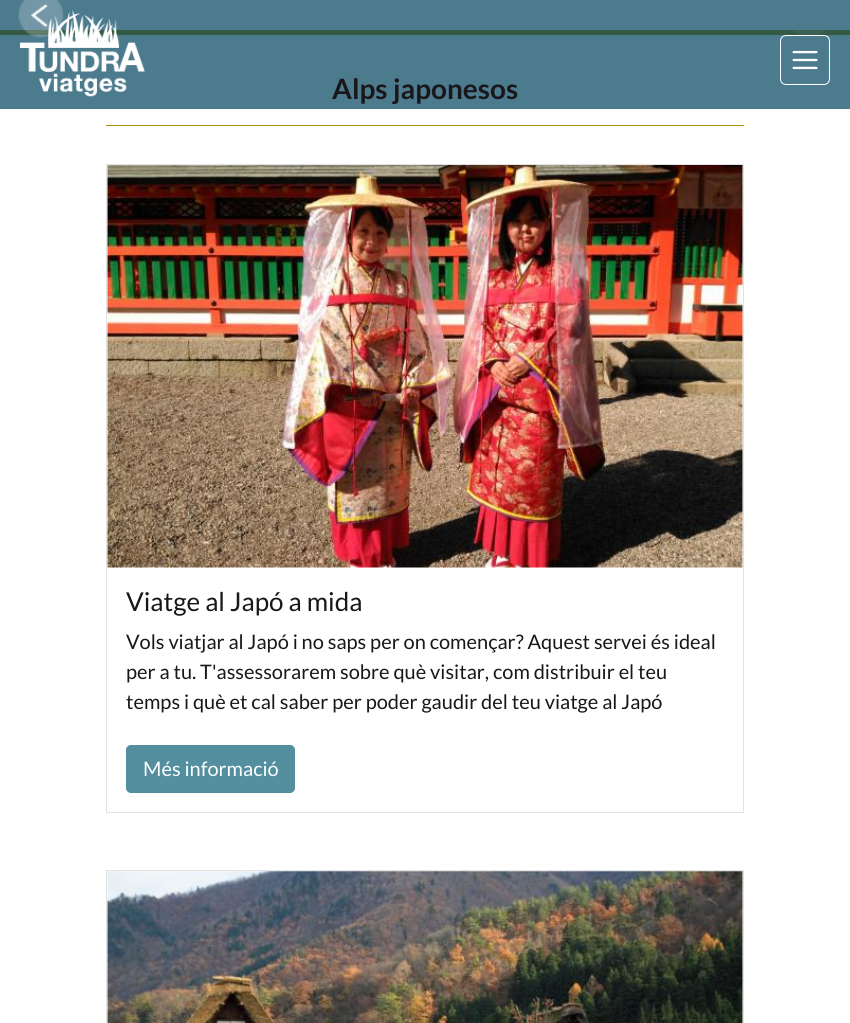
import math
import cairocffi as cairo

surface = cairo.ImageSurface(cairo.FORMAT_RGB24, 850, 1023)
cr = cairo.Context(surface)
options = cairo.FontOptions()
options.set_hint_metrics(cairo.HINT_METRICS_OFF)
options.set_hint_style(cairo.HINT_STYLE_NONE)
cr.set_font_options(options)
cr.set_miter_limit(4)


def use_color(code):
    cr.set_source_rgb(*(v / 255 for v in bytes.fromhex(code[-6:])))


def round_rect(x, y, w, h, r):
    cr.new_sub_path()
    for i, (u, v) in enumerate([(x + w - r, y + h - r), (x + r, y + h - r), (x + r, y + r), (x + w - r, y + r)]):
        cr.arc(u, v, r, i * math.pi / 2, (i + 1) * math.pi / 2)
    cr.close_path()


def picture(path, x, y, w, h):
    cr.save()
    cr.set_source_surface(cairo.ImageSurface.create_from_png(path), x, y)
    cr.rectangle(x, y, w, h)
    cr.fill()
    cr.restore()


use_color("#ffffff")
cr.paint()
use_color("#4d7b8e")
cr.rectangle(0, 0, 850, 109)
cr.fill()
use_color("#355a44")
cr.rectangle(0, 30, 850, 5)
cr.fill()
picture("img3.png", 20, 10, 125, 87)
picture("img1.png", 18, 0, 46, 38)
picture("img2.png", 792, 30, 34, 5)
picture("img4.png", 792, 50, 26, 20)
round_rect(780.5, 35.5, 49, 49, 5.5)
use_color("#ffffff")
cr.set_line_width(1)
cr.stroke()
use_color("#b1910a")
cr.rectangle(106, 125, 638, 1)
cr.fill()
cr.select_font_face("Lato", cairo.FONT_SLANT_NORMAL, cairo.FONT_WEIGHT_BOLD)
cr.set_font_size(28)
use_color("#1a171b")
cr.move_to(332, 99)
cr.show_text("Alps japonesos")
cr.rectangle(106.5, 164.5, 637, 648)
use_color("#e2e2e2")
cr.stroke()
picture("img5.png", 107, 165, 636, 403)
cr.select_font_face("Lato")
cr.set_font_size(26)
use_color("#1a171b")
cr.move_to(126, 611)
cr.show_text("Viatge al Japó a mida")
cr.set_font_size(20)
cr.move_to(126, 649)
cr.show_text("Vols viatjar al Japó i no saps per on començar? Aquest servei és ideal")
cr.move_to(126, 679)
cr.show_text("per a tu. T'assessorarem sobre què visitar, com distribuir el teu")
cr.move_to(126, 709)
cr.show_text("temps i què et cal saber per poder gaudir del teu viatge al Japó")
use_color("#538f9e")
round_rect(126.5, 745.5, 168, 47, 4.5)
cr.fill_preserve()
cr.stroke()
use_color("#ffffff")
cr.move_to(143, 776)
cr.show_text("Més informació")
cr.rectangle(106.5, 870.5, 637, 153)
use_color("#e2e2e2")
cr.stroke()
picture("img6.png", 107, 871, 636, 152)
surface.write_to_png("result.png")
